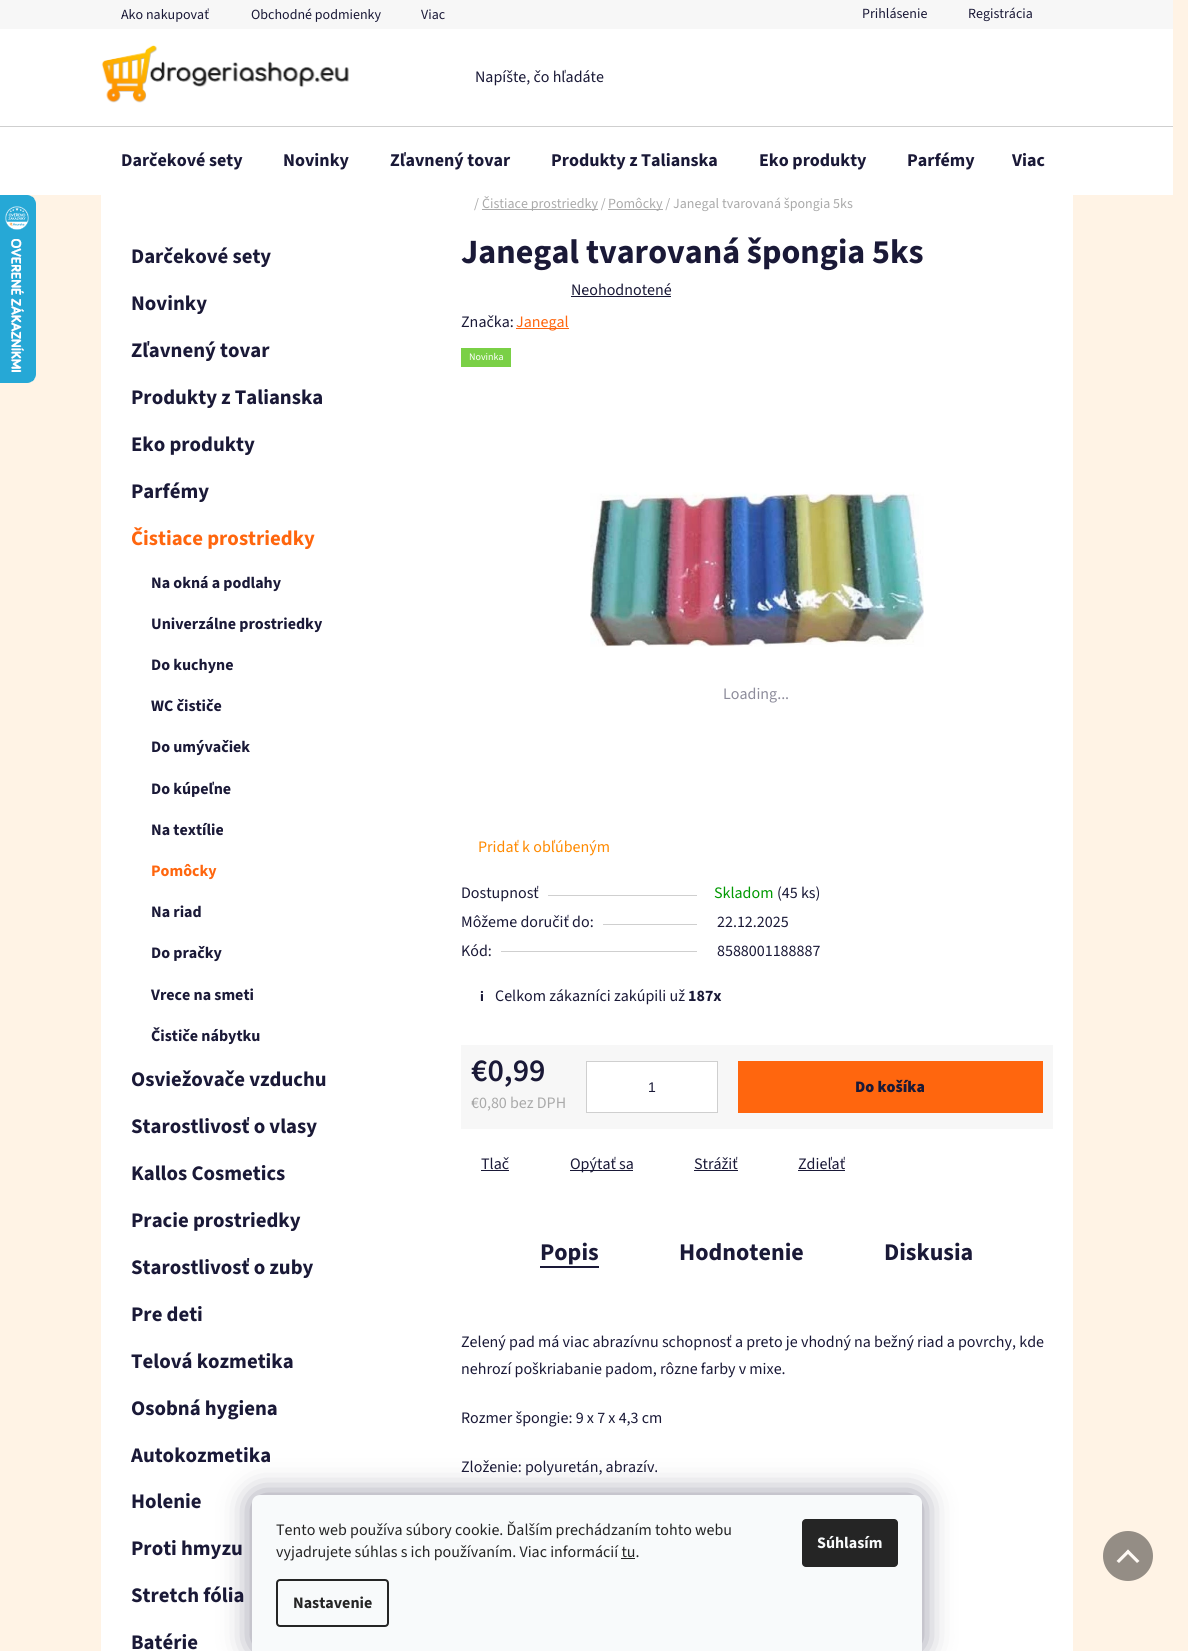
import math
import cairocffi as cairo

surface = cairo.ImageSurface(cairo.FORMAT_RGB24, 1188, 1651)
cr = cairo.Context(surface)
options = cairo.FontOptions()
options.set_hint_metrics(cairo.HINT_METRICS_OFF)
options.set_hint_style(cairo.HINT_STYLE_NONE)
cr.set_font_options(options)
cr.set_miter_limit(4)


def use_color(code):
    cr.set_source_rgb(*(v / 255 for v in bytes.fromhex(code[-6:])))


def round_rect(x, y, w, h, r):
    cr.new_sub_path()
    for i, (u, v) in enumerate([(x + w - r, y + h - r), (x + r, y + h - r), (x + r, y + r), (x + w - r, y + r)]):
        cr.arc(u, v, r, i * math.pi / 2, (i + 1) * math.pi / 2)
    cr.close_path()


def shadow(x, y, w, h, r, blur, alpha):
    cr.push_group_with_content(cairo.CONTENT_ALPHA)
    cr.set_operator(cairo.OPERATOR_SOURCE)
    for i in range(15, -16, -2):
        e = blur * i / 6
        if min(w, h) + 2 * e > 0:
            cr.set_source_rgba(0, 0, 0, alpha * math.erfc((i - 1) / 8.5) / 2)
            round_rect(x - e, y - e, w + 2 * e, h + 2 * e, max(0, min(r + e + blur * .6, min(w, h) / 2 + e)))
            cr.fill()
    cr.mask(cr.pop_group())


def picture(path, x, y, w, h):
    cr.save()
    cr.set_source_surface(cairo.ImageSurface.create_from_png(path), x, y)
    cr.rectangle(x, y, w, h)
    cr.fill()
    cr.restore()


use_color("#fff3e5")
cr.paint()
picture("img1.png", 0, 195, 36, 188)
use_color("#f7f7f7")
cr.rectangle(0, 0, 1173, 29)
cr.fill()
cr.select_font_face("Source Sans 3")
cr.set_font_size(14)
use_color("#1a1937")
cr.move_to(121, 19)
cr.show_text("Ako nakupovať")
cr.move_to(251, 19)
cr.show_text("Obchodné podmienky")
cr.move_to(421, 19)
cr.show_text("Viac")
cr.move_to(862, 18)
cr.show_text("Prihlásenie")
cr.move_to(968, 18)
cr.show_text("Registrácia")
use_color("#ffffff")
cr.rectangle(0, 29, 1173, 166)
cr.fill()
picture("img2.png", 101, 45, 248, 58)
cr.set_font_size(16)
use_color("#1a1937")
cr.move_to(475, 82)
cr.show_text("Napíšte, čo hľadáte")
use_color("#cfcfcf")
cr.rectangle(0, 126, 1173, 1)
cr.fill()
cr.select_font_face("Source Sans 3", cairo.FONT_SLANT_NORMAL, cairo.FONT_WEIGHT_BOLD)
cr.set_font_size(18)
use_color("#1a1937")
cr.move_to(121, 166)
cr.show_text("Darčekové sety")
cr.move_to(283, 166)
cr.show_text("Novinky")
cr.move_to(390, 166)
cr.show_text("Zľavnený tovar")
cr.move_to(551, 166)
cr.show_text("Produkty z Talianska")
cr.move_to(759, 166)
cr.show_text("Eko produkty")
cr.move_to(907, 166)
cr.show_text("Parfémy")
cr.move_to(1012, 166)
cr.show_text("Viac")
use_color("#ffffff")
cr.rectangle(101, 195, 972, 1456)
cr.fill()
cr.select_font_face("Source Sans 3")
cr.set_font_size(14)
use_color("#aaaaaa")
cr.move_to(474, 208)
cr.show_text("/")
cr.rectangle(482, 209, 116, 1)
cr.fill()
cr.move_to(482, 208)
cr.show_text("Čistiace prostriedky /")
cr.rectangle(608, 209, 55, 1)
cr.fill()
cr.move_to(608, 208)
cr.show_text("Pomôcky / Janegal tvarovaná špongia 5ks")
cr.select_font_face("Source Sans 3", cairo.FONT_SLANT_NORMAL, cairo.FONT_WEIGHT_BOLD)
cr.set_font_size(20.75)
use_color("#1a1937")
cr.move_to(131, 263)
cr.show_text("Darčekové sety")
cr.move_to(131, 310)
cr.show_text("Novinky")
cr.move_to(131, 357)
cr.show_text("Zľavnený tovar")
cr.move_to(131, 404)
cr.show_text("Produkty z Talianska")
cr.move_to(131, 451)
cr.show_text("Eko produkty")
cr.move_to(131, 498)
cr.show_text("Parfémy")
use_color("#ff660e")
cr.move_to(131, 545)
cr.show_text("Čistiace prostriedky")
cr.set_font_size(16)
use_color("#1a1937")
cr.move_to(151, 588)
cr.show_text("Na okná a podlahy")
cr.move_to(151, 629)
cr.show_text("Univerzálne prostriedky")
cr.move_to(151, 670)
cr.show_text("Do kuchyne")
cr.move_to(151, 711)
cr.show_text("WC čističe")
cr.move_to(151, 752)
cr.show_text("Do umývačiek")
cr.move_to(151, 794)
cr.show_text("Do kúpeľne")
cr.move_to(151, 835)
cr.show_text("Na textílie")
use_color("#ff660e")
cr.move_to(151, 876)
cr.show_text("Pomôcky")
use_color("#1a1937")
cr.move_to(151, 917)
cr.show_text("Na riad")
cr.move_to(151, 958)
cr.show_text("Do pračky")
cr.move_to(151, 1000)
cr.show_text("Vrece na smeti")
cr.move_to(151, 1041)
cr.show_text("Čističe nábytku")
cr.set_font_size(20.75)
cr.move_to(131, 1086)
cr.show_text("Osviežovače vzduchu")
cr.move_to(131, 1133)
cr.show_text("Starostlivosť o vlasy")
cr.move_to(131, 1180)
cr.show_text("Kallos Cosmetics")
cr.move_to(131, 1227)
cr.show_text("Pracie prostriedky")
cr.move_to(131, 1274)
cr.show_text("Starostlivosť o zuby")
cr.move_to(131, 1321)
cr.show_text("Pre deti")
cr.move_to(131, 1368)
cr.show_text("Telová kozmetika")
cr.move_to(131, 1415)
cr.show_text("Osobná hygiena")
cr.move_to(131, 1462)
cr.show_text("Autokozmetika")
cr.move_to(131, 1508)
cr.show_text("Holenie")
cr.move_to(131, 1555)
cr.show_text("Proti hmyzu")
cr.move_to(131, 1602)
cr.show_text("Stretch fólia")
cr.move_to(131, 1649)
cr.show_text("Batérie")
cr.set_font_size(34)
cr.move_to(461, 263)
cr.show_text("Janegal tvarovaná špongia 5ks")
cr.select_font_face("Source Sans 3")
cr.set_font_size(16)
cr.move_to(571, 295)
cr.show_text("Neohodnotené")
cr.rectangle(571, 296, 100, 1)
cr.fill()
cr.move_to(461, 327)
cr.show_text("Značka:")
use_color("#ff660e")
cr.rectangle(516, 328, 53, 1)
cr.fill()
cr.move_to(516, 327)
cr.show_text("Janegal")
use_color("#7ad046")
cr.rectangle(461, 348, 50, 19)
cr.fill()
cr.set_font_size(10)
use_color("#ffffff")
cr.move_to(469, 360)
cr.show_text("Novinka")
picture("img3.png", 590, 492, 334, 155)
cr.set_font_size(16)
use_color("#8d8c9b")
cr.move_to(723, 699)
cr.show_text("Loading...")
use_color("#ff8a00")
cr.move_to(478, 852)
cr.show_text("Pridať k obľúbeným")
use_color("#1a1937")
cr.move_to(461, 898)
cr.show_text("Dostupnosť")
use_color("#cfcfcf")
cr.rectangle(548, 895, 149, 1)
cr.fill()
use_color("#009901")
cr.move_to(714, 898)
cr.show_text("Skladom")
use_color("#1a1937")
cr.move_to(777, 898)
cr.show_text("(45 ks)")
cr.move_to(461, 927)
cr.show_text("Môžeme doručiť do:")
use_color("#cfcfcf")
cr.rectangle(603, 924, 94, 1)
cr.fill()
use_color("#1a1937")
cr.move_to(717, 927)
cr.show_text("22.12.2025")
cr.move_to(461, 956)
cr.show_text("Kód:")
use_color("#cfcfcf")
cr.rectangle(501, 951, 196, 1)
cr.fill()
use_color("#1a1937")
cr.move_to(717, 956)
cr.show_text("8588001188887")
cr.select_font_face("Source Sans 3", cairo.FONT_SLANT_NORMAL, cairo.FONT_WEIGHT_BOLD)
cr.set_font_size(14)
cr.move_to(480, 1001)
cr.show_text("i")
cr.select_font_face("Source Sans 3")
cr.set_font_size(16)
cr.move_to(495, 1001)
cr.show_text("Celkom zákazníci zakúpili už")
cr.select_font_face("Source Sans 3", cairo.FONT_SLANT_NORMAL, cairo.FONT_WEIGHT_BOLD)
cr.move_to(688, 1001)
cr.show_text("187x")
use_color("#f7f7f7")
cr.rectangle(461, 1045, 592, 84)
cr.fill()
cr.select_font_face("Source Sans 3 SemiBold")
cr.set_font_size(32)
use_color("#1a1937")
cr.move_to(471, 1081)
cr.show_text("€0,99")
cr.select_font_face("Source Sans 3")
cr.set_font_size(16)
use_color("#aaaaaa")
cr.move_to(471, 1108)
cr.show_text("€0,80 bez DPH")
use_color("#ffffff")
cr.rectangle(586.5, 1061.5, 131, 51)
cr.fill_preserve()
use_color("#cfcfcf")
cr.set_line_width(1)
cr.stroke()
cr.select_font_face("Liberation Sans")
cr.set_font_size(14)
use_color("#1a1937")
cr.move_to(648, 1092)
cr.show_text("1")
use_color("#ff660e")
cr.rectangle(738, 1061, 305, 52)
cr.fill()
cr.select_font_face("Source Sans 3 Black")
cr.set_font_size(16)
use_color("#1a1937")
cr.move_to(855, 1092)
cr.show_text("Do košíka")
cr.select_font_face("Source Sans 3")
cr.move_to(481, 1169)
cr.show_text("Tlač")
cr.rectangle(481, 1170, 28, 1)
cr.fill()
cr.rectangle(570, 1170, 63, 1)
cr.fill()
cr.move_to(570, 1169)
cr.show_text("Opýtať sa")
cr.move_to(694, 1169)
cr.show_text("Strážiť")
cr.rectangle(694, 1170, 44, 1)
cr.fill()
cr.move_to(798, 1169)
cr.show_text("Zdieľať")
cr.rectangle(798, 1170, 47, 1)
cr.fill()
cr.select_font_face("Source Sans 3", cairo.FONT_SLANT_NORMAL, cairo.FONT_WEIGHT_BOLD)
cr.set_font_size(24)
cr.move_to(540, 1260)
cr.show_text("Popis")
cr.rectangle(540, 1266, 59, 2)
cr.fill()
cr.move_to(679, 1260)
cr.show_text("Hodnotenie")
cr.move_to(884, 1260)
cr.show_text("Diskusia")
cr.select_font_face("Source Sans 3")
cr.set_font_size(16)
cr.move_to(461, 1347)
cr.show_text("Zelený pad má viac abrazívnu schopnosť a preto je vhodný na bežný riad a povrchy, kde")
cr.move_to(461, 1374)
cr.show_text("nehrozí poškriabanie padom, rôzne farby v mixe.")
cr.move_to(461, 1423)
cr.show_text("Rozmer špongie: 9 x 7 x 4,3 cm")
cr.move_to(461, 1472)
cr.show_text("Zloženie: polyuretán, abrazív.")
use_color("#1b1939")
shadow(252, 1495, 670, 156, 8, 15, 0.5)
use_color("#f8fafb")
cr.new_path()
cr.move_to(260, 1495)
cr.line_to(914, 1495)
cr.curve_to(918.5, 1495, 922, 1498.5, 922, 1503)
cr.line_to(922, 1651)
cr.line_to(252, 1651)
cr.line_to(252, 1503)
cr.curve_to(252, 1498.5, 255.5, 1495, 260, 1495)
cr.close_path()
cr.fill()
use_color("#252525")
cr.move_to(276, 1535)
cr.show_text("Tento web používa súbory cookie. Ďalším prechádzaním tohto webu")
cr.move_to(276, 1557)
cr.show_text("vyjadrujete súhlas s ich používaním. Viac informácií tu.")
cr.rectangle(621, 1558, 14, 1)
cr.fill()
round_rect(277, 1580, 111, 46, 3)
cr.set_line_width(2)
cr.stroke()
cr.select_font_face("Source Sans 3", cairo.FONT_SLANT_NORMAL, cairo.FONT_WEIGHT_BOLD)
cr.move_to(293, 1608)
cr.show_text("Nastavenie")
round_rect(802, 1519, 96, 48, 4)
cr.fill()
use_color("#f8fafb")
cr.move_to(817, 1548)
cr.show_text("Súhlasím")
use_color("#948d85")
cr.new_path()
cr.arc(1128, 1556, 25, 0, 2 * math.pi)
cr.fill()
use_color("#fffaf5")
cr.new_path()
cr.move_to(1116.5, 1561)
cr.line_to(1128, 1549.5)
cr.line_to(1130, 1552)
cr.line_to(1119, 1563)
cr.close_path()
cr.fill()
cr.new_path()
cr.move_to(1126, 1552)
cr.line_to(1128, 1549.5)
cr.line_to(1139.5, 1561)
cr.line_to(1137, 1563)
cr.close_path()
cr.fill()
surface.write_to_png("result.png")
